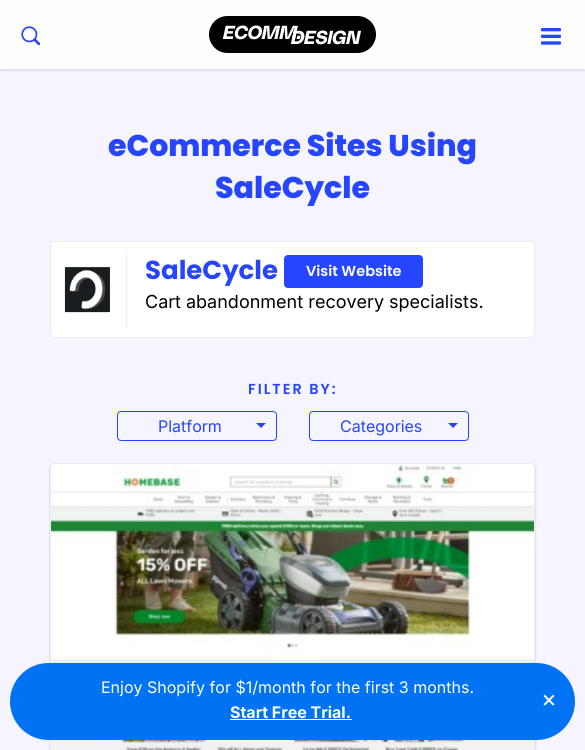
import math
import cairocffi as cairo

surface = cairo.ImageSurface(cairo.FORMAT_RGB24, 585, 750)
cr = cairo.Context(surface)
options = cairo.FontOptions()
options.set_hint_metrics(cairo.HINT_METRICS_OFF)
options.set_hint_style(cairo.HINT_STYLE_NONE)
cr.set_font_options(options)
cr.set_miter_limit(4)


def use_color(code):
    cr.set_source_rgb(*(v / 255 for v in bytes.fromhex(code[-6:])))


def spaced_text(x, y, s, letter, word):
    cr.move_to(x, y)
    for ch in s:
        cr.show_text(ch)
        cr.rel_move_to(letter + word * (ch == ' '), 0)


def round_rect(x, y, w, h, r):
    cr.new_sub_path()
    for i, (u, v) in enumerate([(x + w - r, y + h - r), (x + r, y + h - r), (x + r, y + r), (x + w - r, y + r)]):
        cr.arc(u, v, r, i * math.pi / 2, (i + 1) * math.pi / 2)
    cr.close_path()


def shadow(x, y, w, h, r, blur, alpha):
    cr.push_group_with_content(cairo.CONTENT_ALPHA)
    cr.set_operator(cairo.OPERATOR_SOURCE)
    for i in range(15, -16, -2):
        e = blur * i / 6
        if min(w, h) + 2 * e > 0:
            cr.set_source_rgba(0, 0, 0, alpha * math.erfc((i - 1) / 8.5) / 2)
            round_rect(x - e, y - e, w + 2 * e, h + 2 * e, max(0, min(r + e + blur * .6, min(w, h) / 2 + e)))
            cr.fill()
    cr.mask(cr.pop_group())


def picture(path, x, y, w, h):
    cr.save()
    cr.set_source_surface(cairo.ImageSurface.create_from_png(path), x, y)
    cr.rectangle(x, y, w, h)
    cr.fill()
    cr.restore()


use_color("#f5f4ff")
cr.paint()
use_color("#323232")
shadow(0, 2, 585, 69, 0, 1, 0.1)
use_color("#fefefe")
cr.rectangle(0, 0, 585, 69)
cr.fill()
picture("img1.png", 21, 26, 19, 19)
picture("img2.png", 209, 16, 167, 37)
picture("img3.png", 541, 28, 20, 17)
cr.select_font_face("Poppins ExtraBold")
cr.set_font_size(30)
use_color("#2645ff")
cr.move_to(108, 156)
cr.show_text("eCommerce Sites Using")
cr.move_to(215, 198)
cr.show_text("SaleCycle")
use_color("#ffffff")
round_rect(50.5, 241.5, 484, 96, 3.5)
cr.fill_preserve()
use_color("#ededed")
cr.set_line_width(1)
cr.stroke()
picture("img4.png", 64, 267, 46, 46)
cr.rectangle(126, 251, 1, 77)
cr.fill()
cr.select_font_face("Poppins", cairo.FONT_SLANT_NORMAL, cairo.FONT_WEIGHT_BOLD)
cr.set_font_size(26)
use_color("#2645ff")
cr.move_to(145, 279)
cr.show_text("SaleCycle")
round_rect(284, 255, 139, 33, 4)
cr.fill()
cr.select_font_face("Poppins SemiBold")
cr.set_font_size(14.5)
use_color("#fefefe")
cr.move_to(306, 276)
cr.show_text("Visit Website")
cr.select_font_face("Inter")
cr.set_font_size(18)
use_color("#000000")
cr.move_to(145, 308)
cr.show_text("Cart abandonment recovery specialists.")
cr.select_font_face("Poppins SemiBold")
cr.set_font_size(14.5)
use_color("#2645ff")
spaced_text(248, 394, "FILTER BY:", 2, 0)
round_rect(117.5, 411.5, 159, 29, 3.5)
cr.stroke()
cr.select_font_face("Inter")
cr.set_font_size(16)
cr.move_to(158, 432)
cr.show_text("Platform")
cr.new_path()
cr.move_to(256, 423)
cr.line_to(266, 423)
cr.line_to(261, 428)
cr.close_path()
cr.fill()
round_rect(309.5, 411.5, 159, 29, 3.5)
cr.stroke()
cr.move_to(340, 432)
cr.show_text("Categories")
cr.new_path()
cr.move_to(448, 423)
cr.line_to(458, 423)
cr.line_to(453, 428)
cr.close_path()
cr.fill()
use_color("#000000")
shadow(50, 464, 485, 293, 4, 1, 0.2)
round_rect(50.5, 463.5, 484, 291, 3.5)
use_color("#ededed")
cr.stroke()
picture("img5.png", 51, 464, 483, 286)
use_color("#0072f4")
round_rect(10, 663, 565, 77, 38.5)
cr.fill()
use_color("#fefefe")
cr.move_to(101, 693)
cr.show_text("Enjoy Shopify for $1/month for the first 3 months.")
cr.select_font_face("Inter", cairo.FONT_SLANT_NORMAL, cairo.FONT_WEIGHT_BOLD)
cr.move_to(230, 718)
cr.show_text("Start Free Trial.")
use_color("#ffffff")
cr.rectangle(230, 719, 122, 1)
cr.fill()
cr.select_font_face("Inter")
cr.set_font_size(24)
use_color("#fefefe")
cr.move_to(541, 707)
cr.show_text("×")
surface.write_to_png("result.png")
